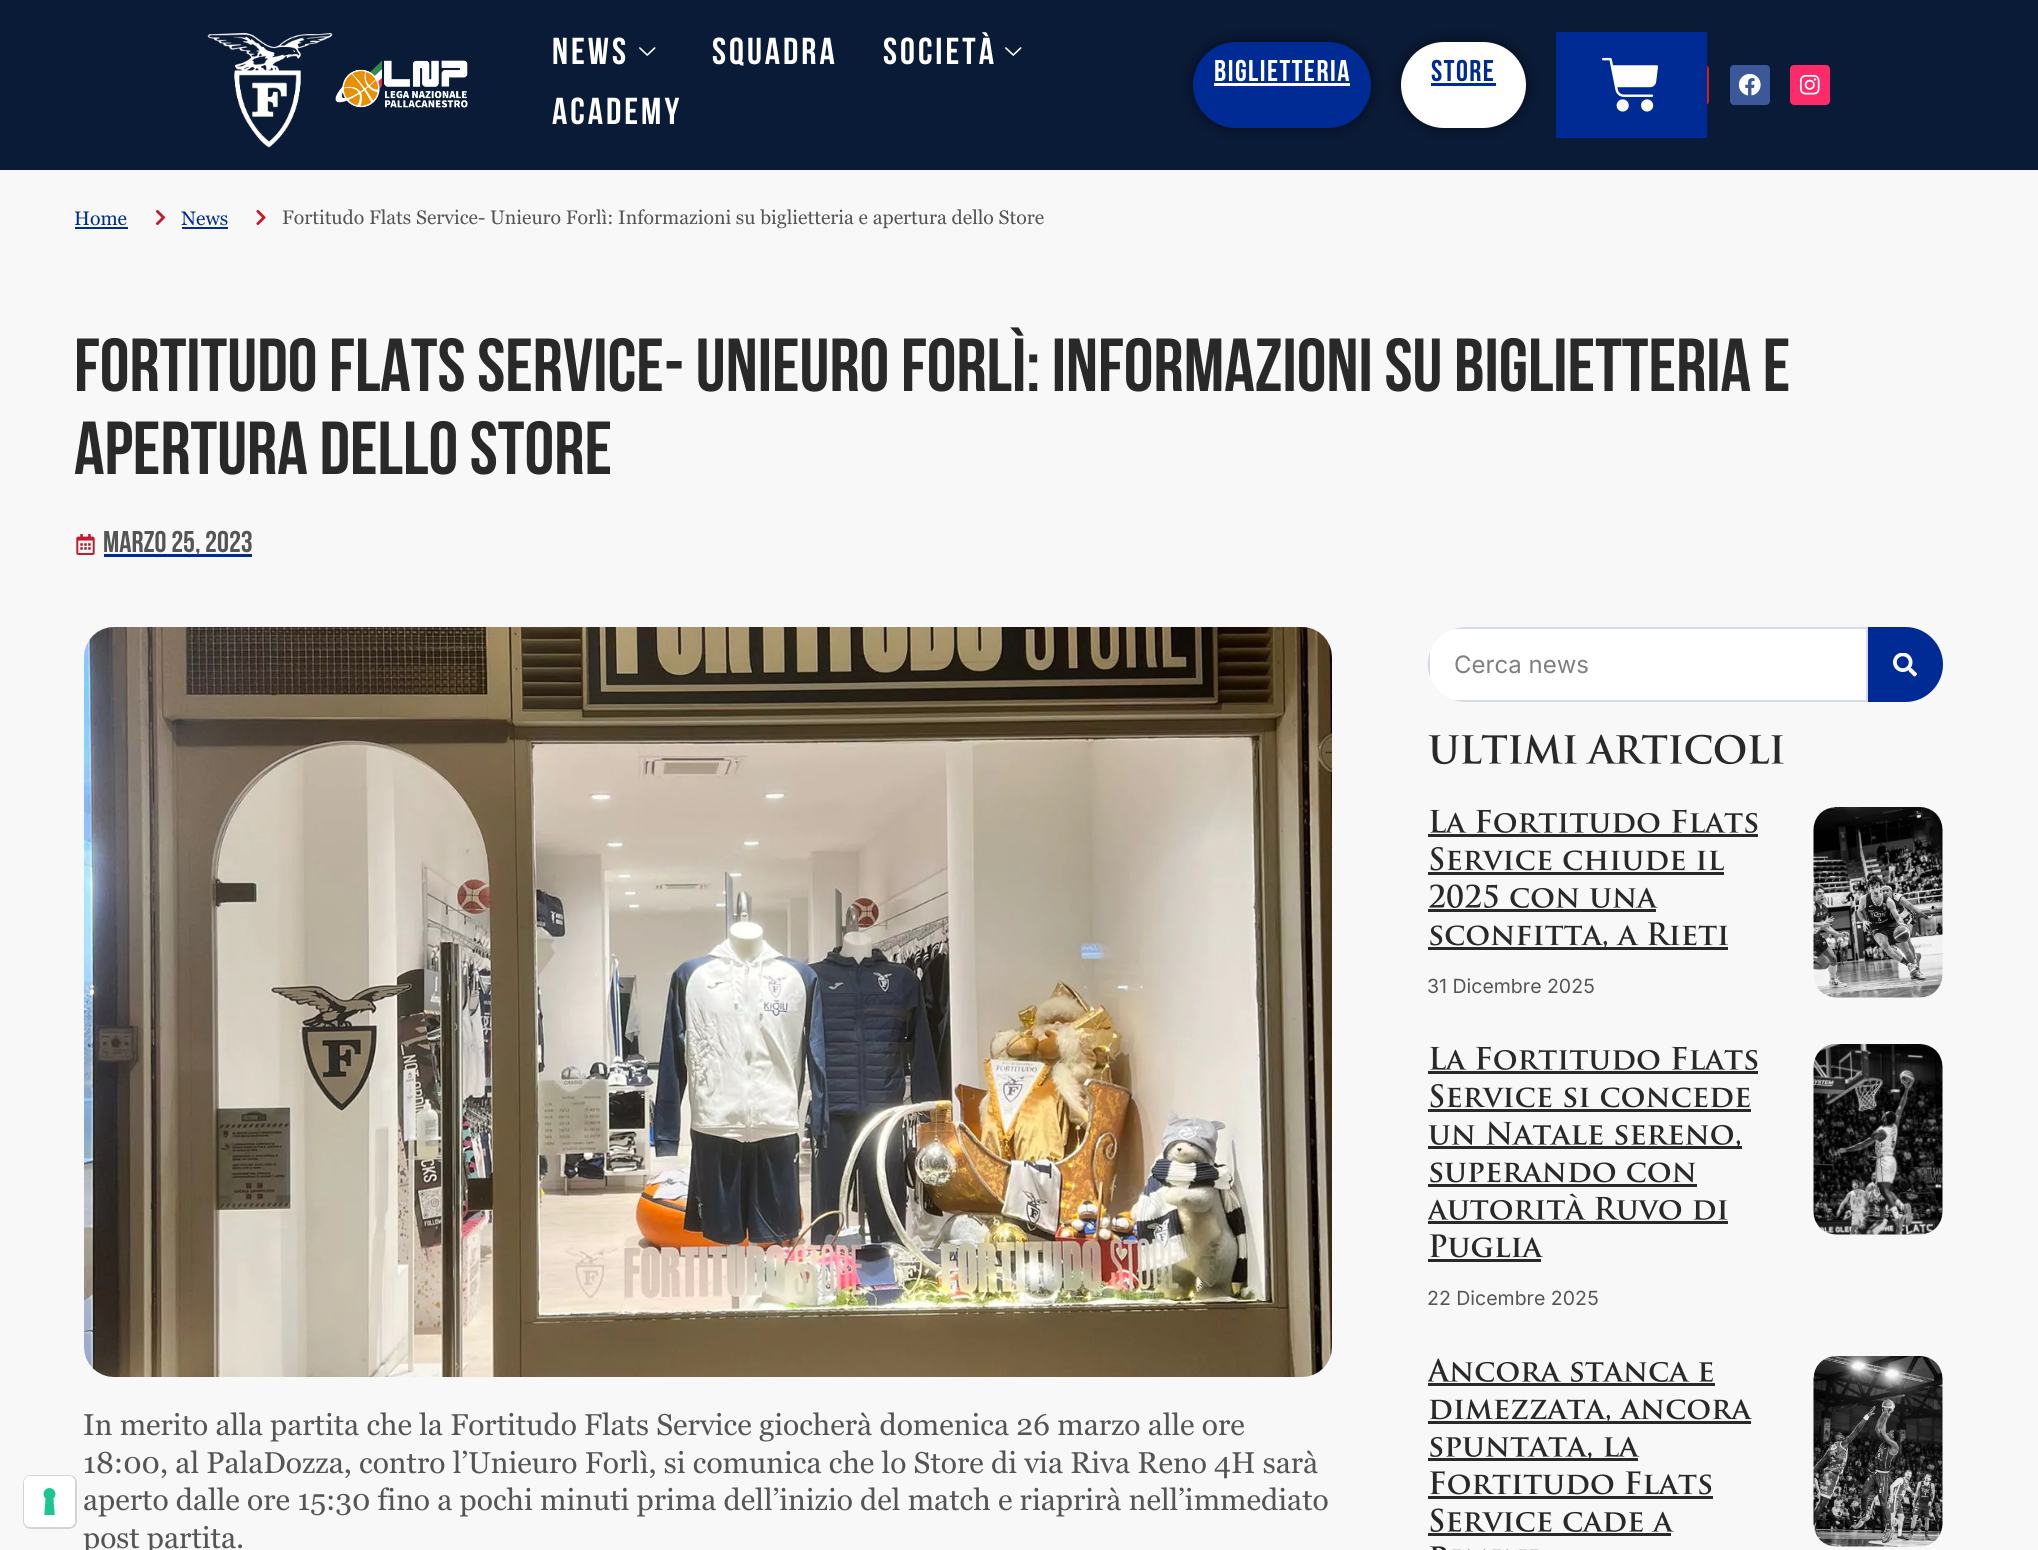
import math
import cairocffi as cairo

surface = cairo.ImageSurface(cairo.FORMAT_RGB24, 2038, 1550)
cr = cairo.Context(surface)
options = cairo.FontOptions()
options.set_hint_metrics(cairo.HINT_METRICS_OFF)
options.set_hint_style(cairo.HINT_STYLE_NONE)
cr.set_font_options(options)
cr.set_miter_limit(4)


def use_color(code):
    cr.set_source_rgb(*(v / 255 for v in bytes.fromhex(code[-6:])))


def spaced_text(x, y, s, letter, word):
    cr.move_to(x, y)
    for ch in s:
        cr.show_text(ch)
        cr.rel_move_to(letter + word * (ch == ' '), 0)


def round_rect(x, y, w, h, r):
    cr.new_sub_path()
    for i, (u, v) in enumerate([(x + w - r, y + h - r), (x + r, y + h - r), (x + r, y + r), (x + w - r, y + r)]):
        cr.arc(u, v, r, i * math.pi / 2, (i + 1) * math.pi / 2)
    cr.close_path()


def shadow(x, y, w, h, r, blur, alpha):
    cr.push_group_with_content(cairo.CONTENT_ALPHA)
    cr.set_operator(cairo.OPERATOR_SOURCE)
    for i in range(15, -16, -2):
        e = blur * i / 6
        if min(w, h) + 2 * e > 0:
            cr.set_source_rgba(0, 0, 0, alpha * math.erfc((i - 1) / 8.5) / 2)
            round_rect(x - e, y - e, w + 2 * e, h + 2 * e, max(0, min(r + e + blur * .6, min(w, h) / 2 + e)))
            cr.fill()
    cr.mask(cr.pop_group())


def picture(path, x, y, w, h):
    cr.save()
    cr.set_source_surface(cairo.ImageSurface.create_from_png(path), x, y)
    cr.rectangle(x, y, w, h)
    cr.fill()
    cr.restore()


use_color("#f8f8f8")
cr.paint()
round_rect(24, 1476, 52, 52, 7)
use_color("#d3d3d3")
cr.stroke()
use_color("#ffffff")
round_rect(24, 1476, 51, 51, 6)
cr.fill()
picture("img1.png", 43, 1488, 13, 27)
use_color("#0a1b37")
cr.rectangle(0, 0, 2038, 170)
cr.fill()
picture("img2.png", 207, 32, 126, 116)
picture("img3.png", 335, 60, 133, 48)
cr.select_font_face("Bebas Neue", cairo.FONT_SLANT_NORMAL, cairo.FONT_WEIGHT_BOLD)
cr.set_font_size(37.5)
use_color("#ffffff")
spaced_text(552, 64, "News", 3, 0)
picture("img4.png", 639, 47, 17, 9)
spaced_text(712, 64, "Squadra", 3, 0)
spaced_text(883, 64, "Società", 3, 0)
picture("img4.png", 1005, 47, 17, 9)
spaced_text(552, 124, "Academy", 3, 0)
use_color("#000000")
shadow(1193, 42, 178, 86, 43, 7.5, 0.5)
use_color("#002b95")
round_rect(1193, 42, 178, 86, 43)
cr.fill()
cr.set_font_size(30)
use_color("#ffffff")
spaced_text(1214, 81, "BIGLIETTERIA", 1.5, 0)
cr.rectangle(1214, 83, 136, 3)
cr.fill()
use_color("#000000")
shadow(1401, 42, 125, 86, 43, 7.5, 0.5)
use_color("#ffffff")
round_rect(1401, 42, 125, 86, 43)
cr.fill()
use_color("#002b95")
spaced_text(1431, 81, "STORE", 1.5, 0)
cr.rectangle(1431, 83, 65, 3)
cr.fill()
use_color("#cd201f")
round_rect(1668, 65, 41, 40, 4)
cr.fill()
use_color("#002b95")
cr.rectangle(1556, 32, 151, 106)
cr.fill()
picture("img5.png", 1602, 57, 56, 55)
use_color("#3b5998")
round_rect(1730, 65, 40, 40, 4)
cr.fill()
picture("img6.png", 1739, 74, 22, 22)
use_color("#ff2a6a")
round_rect(1790, 65, 40, 40, 4)
cr.fill()
picture("img7.png", 1799, 75, 21, 20)
cr.select_font_face("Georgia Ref")
cr.set_font_size(19.5)
use_color("#002b95")
cr.move_to(74, 225)
cr.show_text("Home")
cr.rectangle(75, 227, 53, 2)
cr.fill()
picture("img8.png", 155, 209, 11, 17)
cr.move_to(181, 225)
cr.show_text("News")
cr.rectangle(182, 227, 46, 2)
cr.fill()
picture("img9.png", 256, 209, 10, 17)
use_color("#555555")
cr.move_to(282, 224)
cr.show_text("Fortitudo Flats Service- Unieuro Forlì: Informazioni su biglietteria e apertura dello Store")
cr.select_font_face("Bebas Neue", cairo.FONT_SLANT_NORMAL, cairo.FONT_WEIGHT_BOLD)
cr.set_font_size(75)
use_color("#292929")
cr.move_to(74, 391)
cr.show_text("Fortitudo Flats Service- Unieuro Forlì: Informazioni su biglietteria e")
cr.move_to(74, 474)
cr.show_text("apertura dello Store")
picture("img10.png", 76, 534, 19, 21)
use_color("#002b95")
cr.rectangle(104, 554, 148, 3)
cr.fill()
cr.set_font_size(30)
use_color("#555555")
cr.move_to(103, 552)
cr.show_text("Marzo 25, 2023")
use_color("#ffffff")
cr.new_path()
cr.move_to(1465.5, 627)
cr.line_to(1868, 627)
cr.line_to(1868, 702)
cr.line_to(1465.5, 702)
cr.curve_to(1445, 702, 1428, 685, 1428, 664.5)
cr.curve_to(1428, 644, 1445, 627, 1465.5, 627)
cr.close_path()
cr.fill()
cr.set_source_rgba(0.027, 0.176, 0.494, 0.17)
cr.set_fill_rule(cairo.FILL_RULE_EVEN_ODD)
cr.new_path()
cr.move_to(1466, 627)
cr.curve_to(1461, 627, 1457, 628, 1453, 629)
cr.line_to(1866, 629)
cr.line_to(1866, 700)
cr.line_to(1453, 700)
cr.curve_to(1457, 701, 1461, 702, 1466, 702)
cr.line_to(1868, 702)
cr.line_to(1868, 627)
cr.close_path()
cr.move_to(1430, 677)
cr.curve_to(1427, 669, 1427, 660, 1430, 652)
cr.close_path()
cr.fill()
cr.select_font_face("Inter")
cr.set_font_size(24)
use_color("#7f7f7f")
cr.move_to(1454, 673)
cr.show_text("Cerca news")
use_color("#002b95")
cr.new_path()
cr.move_to(1868, 627)
cr.line_to(1905.5, 627)
cr.curve_to(1926, 627, 1943, 644, 1943, 664.5)
cr.curve_to(1943, 685, 1926, 702, 1905.5, 702)
cr.line_to(1868, 702)
cr.close_path()
cr.fill()
picture("img11.png", 1893, 653, 24, 24)
picture("img12.png", 1428, 734, 356, 31)
picture("img13.png", 1430, 809, 328, 24)
use_color("#292929")
cr.rectangle(1428, 834, 330, 3)
cr.fill()
picture("img14.png", 1430, 847, 294, 24)
cr.rectangle(1428, 872, 296, 3)
cr.fill()
picture("img15.png", 1429, 884, 229, 24)
cr.rectangle(1428, 909, 228, 3)
cr.fill()
picture("img16.png", 1430, 922, 298, 25)
cr.rectangle(1428, 947, 300, 3)
cr.fill()
cr.set_font_size(19.5)
use_color("#555555")
cr.move_to(1427, 993)
cr.show_text("31 Dicembre 2025")
picture("img17.png", 1813, 807, 130, 191)
picture("img18.png", 1813, 1044, 130, 191)
picture("img13.png", 1430, 1046, 328, 24)
use_color("#292929")
cr.rectangle(1428, 1071, 330, 3)
cr.fill()
picture("img19.png", 1430, 1084, 320, 24)
cr.rectangle(1428, 1109, 323, 3)
cr.fill()
picture("img20.png", 1428, 1121, 313, 25)
cr.rectangle(1428, 1146, 314, 3)
cr.fill()
picture("img21.png", 1430, 1162, 266, 21)
cr.rectangle(1428, 1184, 269, 3)
cr.fill()
picture("img22.png", 1428, 1193, 300, 27)
cr.rectangle(1428, 1221, 300, 3)
cr.fill()
picture("img23.png", 1430, 1234, 113, 24)
cr.rectangle(1428, 1259, 113, 3)
cr.fill()
use_color("#555555")
cr.move_to(1427, 1305)
cr.show_text("22 Dicembre 2025")
picture("img24.png", 1428, 1358, 285, 24)
use_color("#292929")
cr.rectangle(1428, 1383, 287, 3)
cr.fill()
picture("img25.png", 1429, 1399, 324, 22)
cr.rectangle(1428, 1421, 323, 3)
cr.fill()
picture("img26.png", 1430, 1436, 210, 22)
cr.rectangle(1428, 1458, 210, 3)
cr.fill()
picture("img27.png", 1430, 1471, 282, 24)
cr.rectangle(1428, 1496, 285, 3)
cr.fill()
picture("img28.png", 1430, 1508, 244, 24)
cr.rectangle(1428, 1533, 243, 3)
cr.fill()
picture("img29.png", 1430, 1546, 108, 4)
picture("img30.png", 1813, 1356, 130, 191)
picture("img31.png", 84, 627, 1248, 750)
cr.select_font_face("Georgia Ref")
cr.set_font_size(30)
use_color("#555555")
cr.move_to(83, 1435)
cr.show_text("In merito alla partita che la Fortitudo Flats Service giocherà domenica 26 marzo alle ore")
cr.move_to(83, 1473)
cr.show_text("18:00, al PalaDozza, contro l’Unieuro Forlì, si comunica che lo Store di via Riva Reno 4H sarà")
cr.move_to(83, 1510)
cr.show_text("aperto dalle ore 15:30 fino a pochi minuti prima dell’inizio del match e riaprirà nell’immediato")
cr.move_to(83, 1548)
cr.show_text("post partita.")
surface.write_to_png("result.png")
